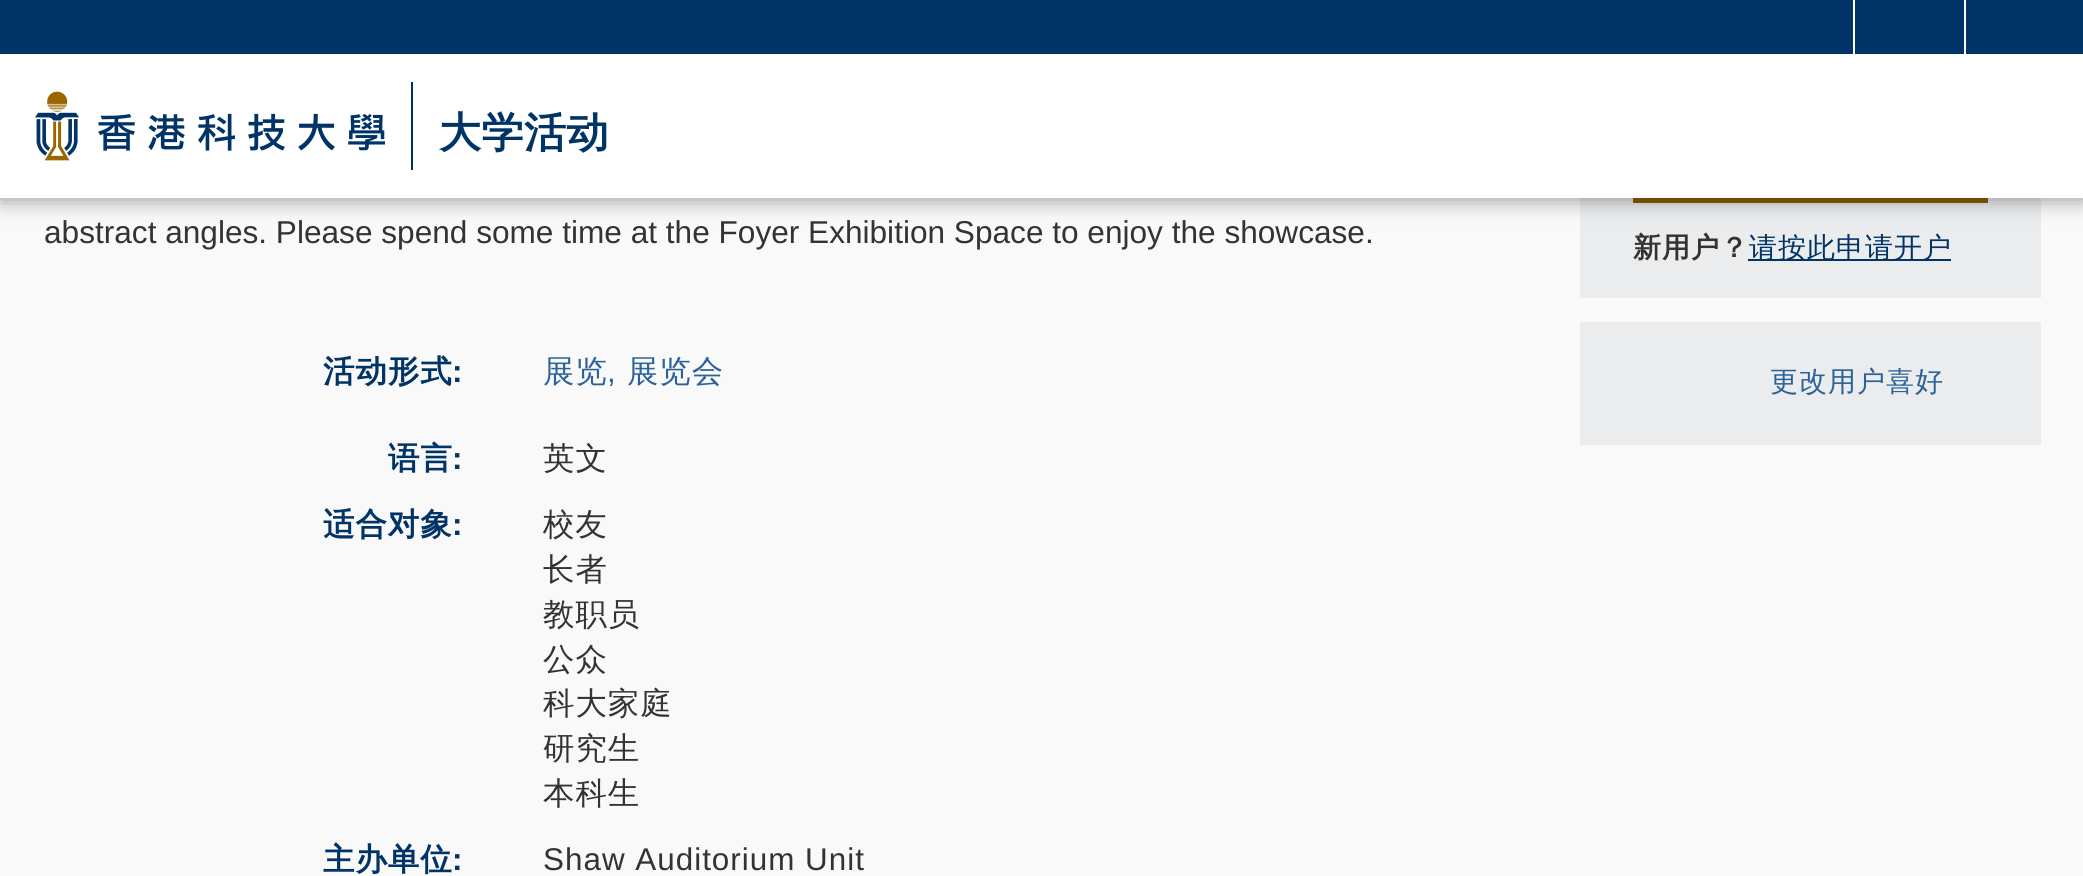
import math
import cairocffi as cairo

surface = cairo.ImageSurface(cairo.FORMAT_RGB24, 2083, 876)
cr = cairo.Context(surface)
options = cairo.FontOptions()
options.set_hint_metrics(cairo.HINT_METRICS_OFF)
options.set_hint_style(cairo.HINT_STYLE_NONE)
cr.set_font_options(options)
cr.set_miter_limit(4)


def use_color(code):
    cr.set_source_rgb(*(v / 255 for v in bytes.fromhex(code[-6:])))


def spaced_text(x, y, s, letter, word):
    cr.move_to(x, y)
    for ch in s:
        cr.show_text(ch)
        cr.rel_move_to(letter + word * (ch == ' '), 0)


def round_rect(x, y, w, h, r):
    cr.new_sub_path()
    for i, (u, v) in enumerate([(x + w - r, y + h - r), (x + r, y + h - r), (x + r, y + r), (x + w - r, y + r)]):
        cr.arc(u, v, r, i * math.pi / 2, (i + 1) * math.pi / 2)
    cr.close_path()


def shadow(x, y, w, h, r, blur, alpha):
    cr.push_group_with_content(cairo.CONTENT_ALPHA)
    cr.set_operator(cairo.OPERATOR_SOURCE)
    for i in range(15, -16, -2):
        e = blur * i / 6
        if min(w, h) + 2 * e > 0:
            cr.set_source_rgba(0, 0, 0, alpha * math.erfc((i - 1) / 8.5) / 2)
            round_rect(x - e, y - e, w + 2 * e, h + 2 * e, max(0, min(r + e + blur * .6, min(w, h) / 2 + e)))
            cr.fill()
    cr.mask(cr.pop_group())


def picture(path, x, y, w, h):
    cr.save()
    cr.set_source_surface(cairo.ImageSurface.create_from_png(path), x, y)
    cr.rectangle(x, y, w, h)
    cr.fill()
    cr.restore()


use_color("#f9f9f9")
cr.paint()
use_color("#eaecee")
cr.rectangle(1580, 198, 461, 100)
cr.fill()
use_color("#8f5f00")
cr.rectangle(1633, 198, 355, 5)
cr.fill()
use_color("#000000")
shadow(0, 0, 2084, 200, 0, 10.5, 0.4)
use_color("#003366")
cr.rectangle(0, 0, 2083, 54)
cr.fill()
use_color("#ffffff")
cr.rectangle(1964, 0, 2, 54)
cr.fill()
cr.rectangle(1853, 0, 2, 54)
cr.fill()
cr.rectangle(0, 54, 2083, 144)
cr.fill()
picture("img1.png", 35, 91, 350, 70)
use_color("#003366")
cr.rectangle(411, 82, 2, 88)
cr.fill()
cr.select_font_face("WenQuanYi Zen Hei", cairo.FONT_SLANT_NORMAL, cairo.FONT_WEIGHT_BOLD)
cr.set_font_size(42)
spaced_text(439, 147, "大学活动", 0.5, 0)
cr.select_font_face("Liberation Sans")
cr.set_font_size(31.6)
use_color("#333333")
cr.move_to(44, 243)
cr.show_text("abstract angles. Please spend some time at the Foyer Exhibition Space to enjoy the showcase.")
cr.select_font_face("WenQuanYi Zen Hei", cairo.FONT_SLANT_NORMAL, cairo.FONT_WEIGHT_BOLD)
cr.set_font_size(31.4)
use_color("#003366")
spaced_text(323, 382, "活动形式", 1, 0)
cr.select_font_face("Liberation Sans", cairo.FONT_SLANT_NORMAL, cairo.FONT_WEIGHT_BOLD)
spaced_text(452, 382, ":", 1, 0)
cr.select_font_face("WenQuanYi Zen Hei Medium")
use_color("#2b6297")
spaced_text(543, 382, "展览", 1, 0)
cr.select_font_face("Liberation Sans")
spaced_text(607, 382, ",", 1, 0)
cr.select_font_face("WenQuanYi Zen Hei Medium")
spaced_text(627, 382, "展览会", 1, 0)
cr.select_font_face("WenQuanYi Zen Hei", cairo.FONT_SLANT_NORMAL, cairo.FONT_WEIGHT_BOLD)
use_color("#003366")
spaced_text(388, 469, "语言", 1, 0)
cr.select_font_face("Liberation Sans", cairo.FONT_SLANT_NORMAL, cairo.FONT_WEIGHT_BOLD)
spaced_text(452, 469, ":", 1, 0)
cr.select_font_face("WenQuanYi Zen Hei Medium")
use_color("#333333")
spaced_text(543, 469, "英文", 1, 0)
cr.select_font_face("WenQuanYi Zen Hei", cairo.FONT_SLANT_NORMAL, cairo.FONT_WEIGHT_BOLD)
use_color("#003366")
spaced_text(323, 535, "适合对象", 1, 0)
cr.select_font_face("Liberation Sans", cairo.FONT_SLANT_NORMAL, cairo.FONT_WEIGHT_BOLD)
spaced_text(452, 535, ":", 1, 0)
cr.select_font_face("WenQuanYi Zen Hei Medium")
use_color("#333333")
spaced_text(543, 535, "校友", 1, 0)
spaced_text(543, 580, "长者", 1, 0)
spaced_text(543, 625, "教职员", 1, 0)
spaced_text(543, 670, "公众", 1, 0)
spaced_text(543, 714, "科大家庭", 1, 0)
spaced_text(543, 759, "研究生", 1, 0)
spaced_text(543, 804, "本科生", 1, 0)
cr.select_font_face("WenQuanYi Zen Hei", cairo.FONT_SLANT_NORMAL, cairo.FONT_WEIGHT_BOLD)
use_color("#003366")
spaced_text(323, 870, "主办单位", 1, 0)
cr.select_font_face("Liberation Sans", cairo.FONT_SLANT_NORMAL, cairo.FONT_WEIGHT_BOLD)
spaced_text(452, 870, ":", 1, 0)
cr.select_font_face("Liberation Sans")
use_color("#333333")
spaced_text(543, 870, "Shaw Auditorium Unit", 1, 0)
cr.select_font_face("WenQuanYi Zen Hei", cairo.FONT_SLANT_NORMAL, cairo.FONT_WEIGHT_BOLD)
cr.set_font_size(28)
spaced_text(1633, 257, "新用户？", 1, 0)
use_color("#003366")
cr.rectangle(1748, 259, 203, 2)
cr.fill()
cr.select_font_face("WenQuanYi Zen Hei Medium")
spaced_text(1749, 257, "请按此申请开户", 1, 0)
use_color("#eaecee")
cr.rectangle(1580, 322, 461, 123)
cr.fill()
use_color("#2b6297")
spaced_text(1770, 391, "更改用户喜好", 1, 0)
surface.write_to_png("result.png")
